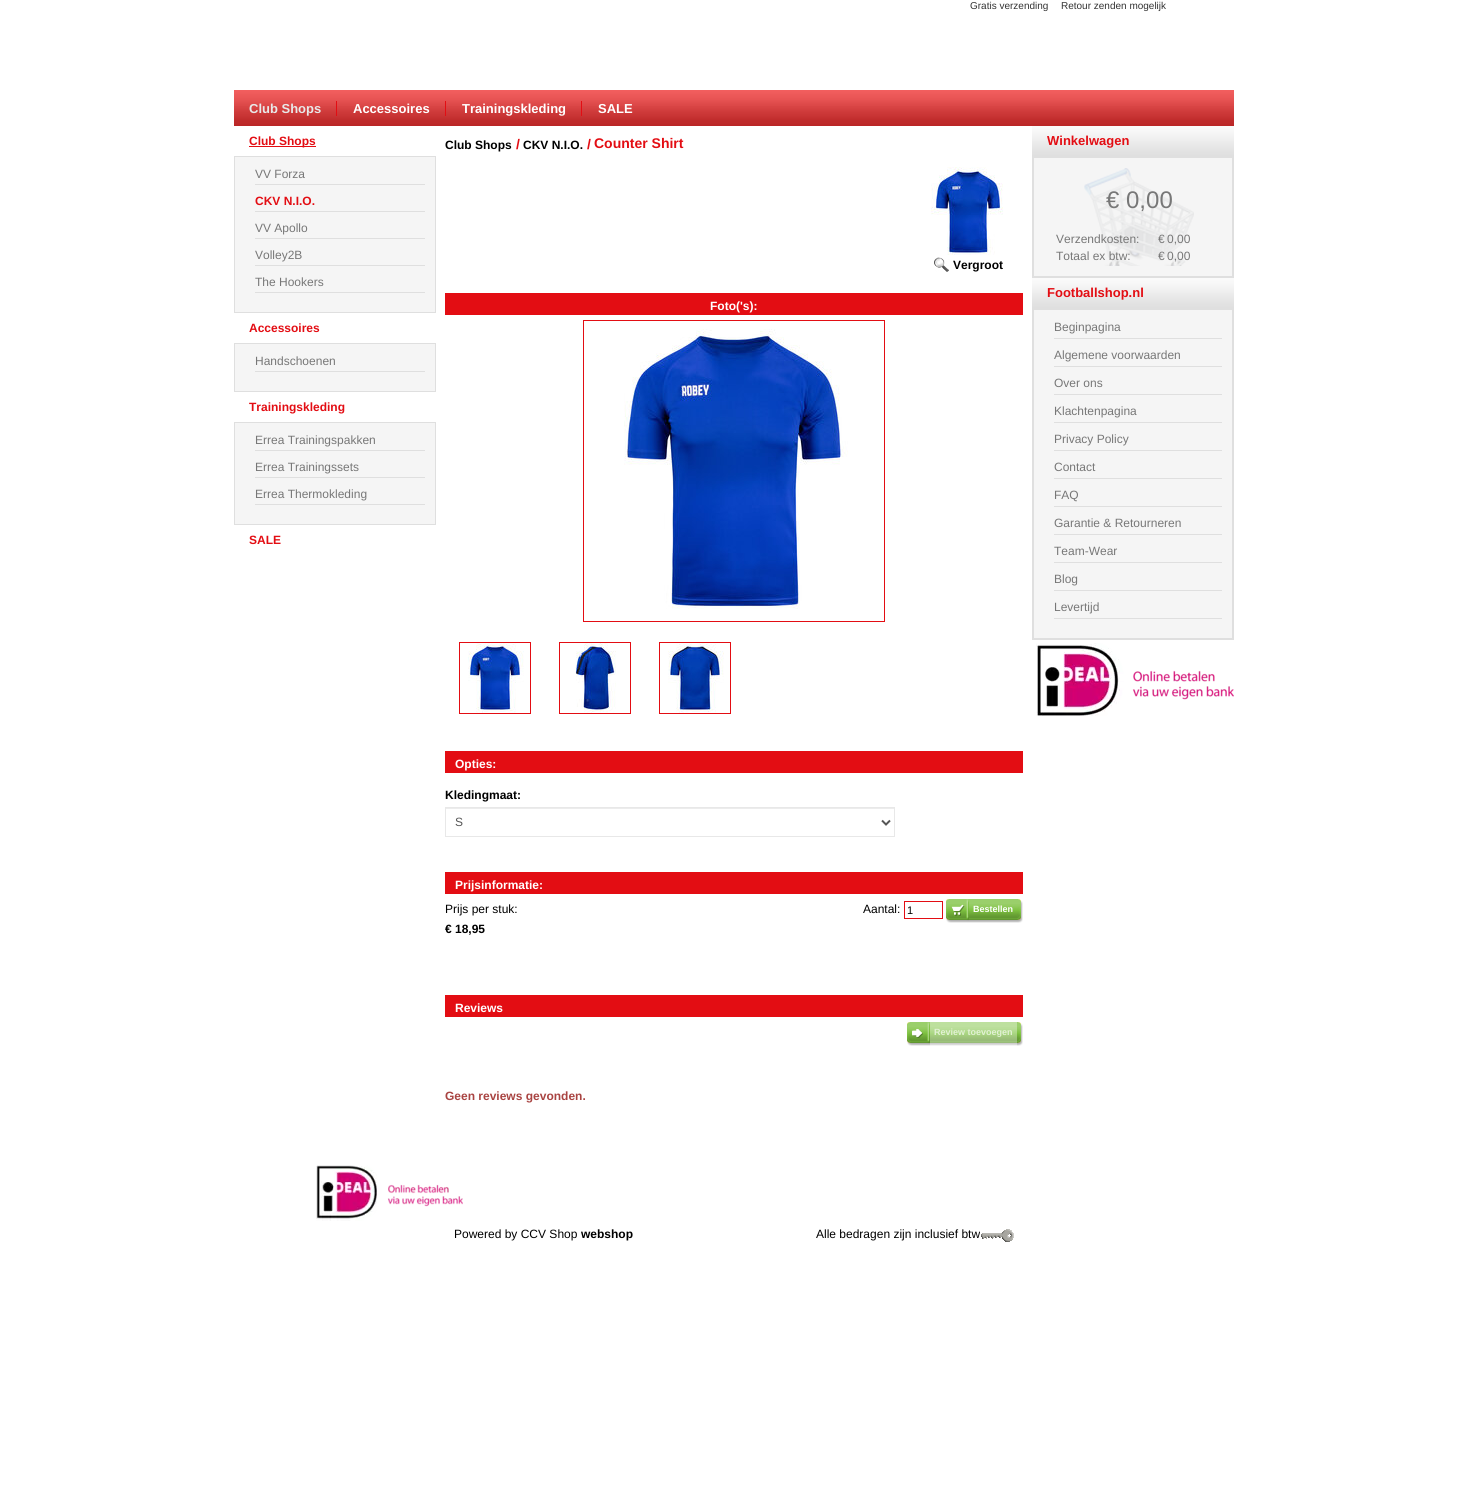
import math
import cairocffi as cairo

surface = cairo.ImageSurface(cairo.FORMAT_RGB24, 1468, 1508)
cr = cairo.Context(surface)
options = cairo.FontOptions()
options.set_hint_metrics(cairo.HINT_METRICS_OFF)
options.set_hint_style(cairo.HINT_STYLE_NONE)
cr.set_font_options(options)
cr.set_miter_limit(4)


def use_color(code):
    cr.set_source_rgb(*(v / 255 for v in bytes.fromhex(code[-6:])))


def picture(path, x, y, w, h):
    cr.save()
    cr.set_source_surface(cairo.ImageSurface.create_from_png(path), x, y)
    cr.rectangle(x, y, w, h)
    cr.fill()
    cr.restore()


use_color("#ffffff")
cr.paint()
cr.select_font_face("Liberation Sans")
cr.set_font_size(10)
use_color("#333333")
cr.move_to(970, 9)
cr.show_text("Gratis verzending")
cr.move_to(1061, 9)
cr.show_text("Retour zenden mogelijk")
picture("img1.png", 234, 90, 1000, 36)
cr.select_font_face("Liberation Sans", cairo.FONT_SLANT_NORMAL, cairo.FONT_WEIGHT_BOLD)
cr.set_font_size(13)
use_color("#e8e8e8")
cr.move_to(249, 113)
cr.show_text("Club Shops")
use_color("#e30d13")
cr.rectangle(336, 101, 1, 15)
cr.fill()
use_color("#ffffff")
cr.move_to(353, 113)
cr.show_text("Accessoires")
use_color("#e30d13")
cr.rectangle(445, 101, 1, 15)
cr.fill()
use_color("#ffffff")
cr.move_to(462, 113)
cr.show_text("Trainingskleding")
use_color("#e30d13")
cr.rectangle(581, 101, 1, 15)
cr.fill()
use_color("#ffffff")
cr.move_to(598, 113)
cr.show_text("SALE")
use_color("#e30d13")
cr.rectangle(249, 146, 67, 1)
cr.fill()
cr.set_font_size(12)
cr.move_to(249, 145)
cr.show_text("Club Shops")
use_color("#f5f5f5")
cr.rectangle(234.5, 156.5, 201, 156)
cr.fill_preserve()
use_color("#dfdfdf")
cr.set_line_width(1)
cr.stroke()
cr.rectangle(255, 184, 170, 1)
cr.fill()
cr.select_font_face("Liberation Sans")
use_color("#777777")
cr.move_to(255, 178)
cr.show_text("VV Forza")
use_color("#dfdfdf")
cr.rectangle(255, 211, 170, 1)
cr.fill()
cr.select_font_face("Liberation Sans", cairo.FONT_SLANT_NORMAL, cairo.FONT_WEIGHT_BOLD)
use_color("#e30d13")
cr.move_to(255, 205)
cr.show_text("CKV N.I.O.")
use_color("#dfdfdf")
cr.rectangle(255, 238, 170, 1)
cr.fill()
cr.select_font_face("Liberation Sans")
use_color("#777777")
cr.move_to(255, 232)
cr.show_text("VV Apollo")
use_color("#dfdfdf")
cr.rectangle(255, 265, 170, 1)
cr.fill()
use_color("#777777")
cr.move_to(255, 259)
cr.show_text("Volley2B")
use_color("#dfdfdf")
cr.rectangle(255, 292, 170, 1)
cr.fill()
use_color("#777777")
cr.move_to(255, 286)
cr.show_text("The Hookers")
cr.select_font_face("Liberation Sans", cairo.FONT_SLANT_NORMAL, cairo.FONT_WEIGHT_BOLD)
use_color("#e30d13")
cr.move_to(249, 332)
cr.show_text("Accessoires")
use_color("#f5f5f5")
cr.rectangle(234.5, 343.5, 201, 48)
cr.fill_preserve()
use_color("#dfdfdf")
cr.stroke()
cr.rectangle(255, 371, 170, 1)
cr.fill()
cr.select_font_face("Liberation Sans")
use_color("#777777")
cr.move_to(255, 365)
cr.show_text("Handschoenen")
cr.select_font_face("Liberation Sans", cairo.FONT_SLANT_NORMAL, cairo.FONT_WEIGHT_BOLD)
use_color("#e30d13")
cr.move_to(249, 411)
cr.show_text("Trainingskleding")
use_color("#f5f5f5")
cr.rectangle(234.5, 422.5, 201, 102)
cr.fill_preserve()
use_color("#dfdfdf")
cr.stroke()
cr.rectangle(255, 450, 170, 1)
cr.fill()
cr.select_font_face("Liberation Sans")
use_color("#777777")
cr.move_to(255, 444)
cr.show_text("Errea Trainingspakken")
use_color("#dfdfdf")
cr.rectangle(255, 477, 170, 1)
cr.fill()
use_color("#777777")
cr.move_to(255, 471)
cr.show_text("Errea Trainingssets")
use_color("#dfdfdf")
cr.rectangle(255, 504, 170, 1)
cr.fill()
use_color("#777777")
cr.move_to(255, 498)
cr.show_text("Errea Thermokleding")
cr.select_font_face("Liberation Sans", cairo.FONT_SLANT_NORMAL, cairo.FONT_WEIGHT_BOLD)
use_color("#e30d13")
cr.move_to(249, 544)
cr.show_text("SALE")
use_color("#000000")
cr.move_to(445, 149)
cr.show_text("Club Shops")
cr.set_font_size(14)
use_color("#e30d13")
cr.move_to(516, 149)
cr.show_text("/")
cr.set_font_size(12)
use_color("#000000")
cr.move_to(523, 149)
cr.show_text("CKV N.I.O.")
cr.set_font_size(14)
use_color("#e30d13")
cr.move_to(587, 149)
cr.show_text("/")
cr.move_to(594, 148)
cr.show_text("Counter Shirt")
picture("img2.png", 931, 167, 72, 88)
picture("img3.png", 934, 257, 15, 15)
cr.set_font_size(12)
use_color("#000000")
cr.move_to(953, 269)
cr.show_text("Vergroot")
use_color("#e30d13")
cr.rectangle(445, 293, 578, 22)
cr.fill()
use_color("#ffffff")
cr.move_to(710, 310)
cr.show_text("Foto('s):")
cr.rectangle(583.5, 320.5, 301, 301)
use_color("#e30d13")
cr.stroke()
picture("img4.png", 624, 329, 224, 280)
cr.rectangle(459.5, 642.5, 71, 71)
cr.stroke()
picture("img5.png", 468, 643, 56, 70)
cr.rectangle(559.5, 642.5, 71, 71)
cr.stroke()
picture("img6.png", 575, 643, 41, 70)
cr.rectangle(659.5, 642.5, 71, 71)
cr.stroke()
picture("img7.png", 668, 643, 56, 70)
cr.rectangle(445, 751, 578, 22)
cr.fill()
use_color("#ffffff")
cr.move_to(455, 768)
cr.show_text("Opties:")
use_color("#000000")
cr.move_to(445, 799)
cr.show_text("Kledingmaat:")
use_color("#ececec")
cr.rectangle(446, 808, 448, 1)
cr.fill()
cr.rectangle(445.5, 807.5, 449, 29)
use_color("#e8e8e8")
cr.stroke()
cr.new_path()
cr.move_to(882, 820.5)
cr.line_to(886, 824.5)
cr.line_to(890, 820.5)
use_color("#555555")
cr.set_line_width(2)
cr.stroke()
cr.select_font_face("Liberation Sans")
cr.move_to(455, 826)
cr.show_text("S")
use_color("#e30d13")
cr.rectangle(445, 872, 578, 22)
cr.fill()
cr.select_font_face("Liberation Sans", cairo.FONT_SLANT_NORMAL, cairo.FONT_WEIGHT_BOLD)
use_color("#ffffff")
cr.move_to(455, 889)
cr.show_text("Prijsinformatie:")
cr.select_font_face("Liberation Sans")
use_color("#000000")
cr.move_to(445, 913)
cr.show_text("Prijs per stuk:")
cr.select_font_face("Liberation Sans", cairo.FONT_SLANT_NORMAL, cairo.FONT_WEIGHT_BOLD)
cr.move_to(445, 933)
cr.show_text("€ 18,95")
cr.select_font_face("Liberation Sans")
cr.move_to(863, 913)
cr.show_text("Aantal:")
cr.rectangle(904.5, 901.5, 38, 17)
use_color("#e30d13")
cr.set_line_width(1)
cr.stroke()
cr.set_font_size(11)
use_color("#000000")
cr.move_to(907, 914)
cr.show_text("1")
picture("img8.png", 946, 899, 23, 24)
picture("img9.png", 969, 899, 48, 24)
cr.select_font_face("Liberation Sans", cairo.FONT_SLANT_NORMAL, cairo.FONT_WEIGHT_BOLD)
cr.set_font_size(9)
use_color("#ffffff")
cr.move_to(973, 912)
cr.show_text("Bestellen")
picture("img10.png", 1017, 899, 6, 24)
use_color("#e30d13")
cr.rectangle(445, 995, 578, 22)
cr.fill()
cr.set_font_size(12)
use_color("#ffffff")
cr.move_to(455, 1012)
cr.show_text("Reviews")
picture("img11.png", 907, 1022, 23, 24)
picture("img12.png", 930, 1022, 87, 24)
cr.set_font_size(9)
use_color("#e2f1d5")
cr.move_to(934, 1035)
cr.show_text("Review toevoegen")
picture("img10.png", 1017, 1022, 6, 24)
cr.set_font_size(12)
use_color("#a94442")
cr.move_to(445, 1100)
cr.show_text("Geen reviews gevonden.")
picture("img13.png", 1032, 126, 202, 30)
cr.set_font_size(13)
use_color("#e30d13")
cr.move_to(1047, 145)
cr.show_text("Winkelwagen")
use_color("#f5f5f5")
cr.rectangle(1033, 157, 200, 120)
cr.fill_preserve()
use_color("#dfdfdf")
cr.set_line_width(2)
cr.stroke()
picture("img14.png", 1084, 168, 110, 98)
cr.select_font_face("Liberation Sans")
cr.set_font_size(24)
use_color("#777777")
cr.move_to(1106, 208)
cr.show_text("€ 0,00")
cr.set_font_size(12)
cr.move_to(1056, 243)
cr.show_text("Verzendkosten:")
cr.move_to(1158, 243)
cr.show_text("€")
cr.move_to(1167, 243)
cr.show_text("0,00")
cr.move_to(1056, 260)
cr.show_text("Totaal ex btw:")
cr.move_to(1158, 260)
cr.show_text("€")
cr.move_to(1167, 260)
cr.show_text("0,00")
picture("img13.png", 1032, 278, 202, 30)
cr.select_font_face("Liberation Sans", cairo.FONT_SLANT_NORMAL, cairo.FONT_WEIGHT_BOLD)
cr.set_font_size(13)
use_color("#e30d13")
cr.move_to(1047, 297)
cr.show_text("Footballshop.nl")
use_color("#f5f5f5")
cr.rectangle(1033, 309, 200, 330)
cr.fill_preserve()
use_color("#dfdfdf")
cr.stroke()
cr.rectangle(1054, 338, 168, 1)
cr.fill()
cr.select_font_face("Liberation Sans")
cr.set_font_size(12)
use_color("#777777")
cr.move_to(1054, 331)
cr.show_text("Beginpagina")
use_color("#dfdfdf")
cr.rectangle(1054, 366, 168, 1)
cr.fill()
use_color("#777777")
cr.move_to(1054, 359)
cr.show_text("Algemene voorwaarden")
use_color("#dfdfdf")
cr.rectangle(1054, 394, 168, 1)
cr.fill()
use_color("#777777")
cr.move_to(1054, 387)
cr.show_text("Over ons")
use_color("#dfdfdf")
cr.rectangle(1054, 422, 168, 1)
cr.fill()
use_color("#777777")
cr.move_to(1054, 415)
cr.show_text("Klachtenpagina")
use_color("#dfdfdf")
cr.rectangle(1054, 450, 168, 1)
cr.fill()
use_color("#777777")
cr.move_to(1054, 443)
cr.show_text("Privacy Policy")
use_color("#dfdfdf")
cr.rectangle(1054, 478, 168, 1)
cr.fill()
use_color("#777777")
cr.move_to(1054, 471)
cr.show_text("Contact")
use_color("#dfdfdf")
cr.rectangle(1054, 506, 168, 1)
cr.fill()
use_color("#777777")
cr.move_to(1054, 499)
cr.show_text("FAQ")
use_color("#dfdfdf")
cr.rectangle(1054, 534, 168, 1)
cr.fill()
use_color("#777777")
cr.move_to(1054, 527)
cr.show_text("Garantie & Retourneren")
use_color("#dfdfdf")
cr.rectangle(1054, 562, 168, 1)
cr.fill()
use_color("#777777")
cr.move_to(1054, 555)
cr.show_text("Team-Wear")
use_color("#dfdfdf")
cr.rectangle(1054, 590, 168, 1)
cr.fill()
use_color("#777777")
cr.move_to(1054, 583)
cr.show_text("Blog")
use_color("#dfdfdf")
cr.rectangle(1054, 618, 168, 1)
cr.fill()
use_color("#777777")
cr.move_to(1054, 611)
cr.show_text("Levertijd")
picture("img15.png", 1036, 643, 198, 73)
picture("img16.png", 316, 1165, 147, 56)
use_color("#000000")
cr.move_to(454, 1238)
cr.show_text("Powered by CCV Shop")
cr.select_font_face("Liberation Sans", cairo.FONT_SLANT_NORMAL, cairo.FONT_WEIGHT_BOLD)
cr.move_to(581, 1238)
cr.show_text("webshop")
cr.select_font_face("Liberation Sans")
cr.move_to(816, 1238)
cr.show_text("Alle bedragen zijn inclusief btw")
picture("img17.png", 981, 1229, 33, 13)
surface.write_to_png("result.png")
